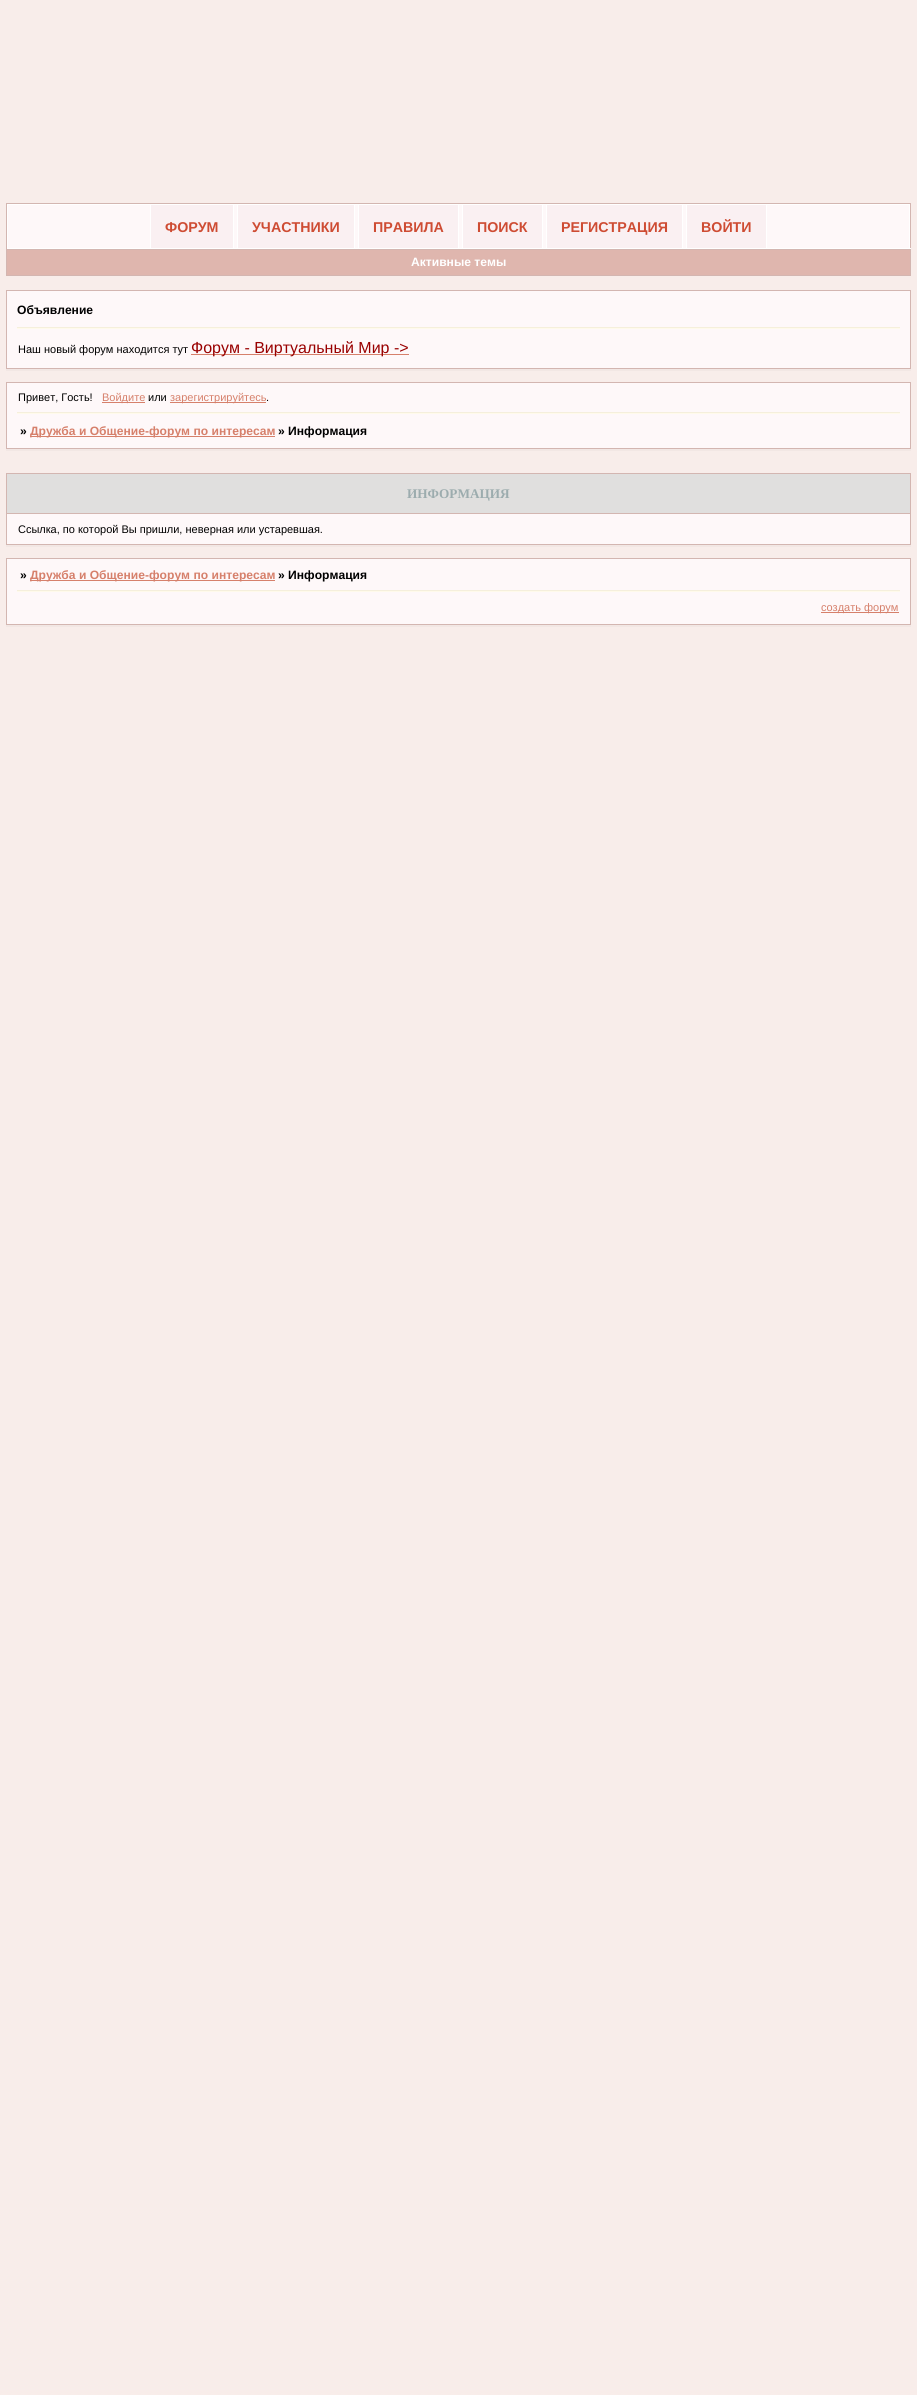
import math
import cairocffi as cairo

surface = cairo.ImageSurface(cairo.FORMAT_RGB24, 917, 2395)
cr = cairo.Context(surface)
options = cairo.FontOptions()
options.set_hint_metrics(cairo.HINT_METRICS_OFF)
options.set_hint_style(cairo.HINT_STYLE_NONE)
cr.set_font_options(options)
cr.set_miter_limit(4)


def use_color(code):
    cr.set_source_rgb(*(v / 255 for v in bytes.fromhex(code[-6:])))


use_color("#f8edea")
cr.paint()
use_color("#d3b6b1")
cr.rectangle(6, 203, 905, 1)
cr.fill()
cr.rectangle(910, 203, 1, 46)
cr.fill()
use_color("#ffffff")
cr.rectangle(6, 248, 905, 1)
cr.fill()
use_color("#d3b6b1")
cr.rectangle(6, 203, 1, 46)
cr.fill()
use_color("#fef8f9")
cr.rectangle(8, 205, 901, 43)
cr.fill()
use_color("#ffffff")
cr.rectangle(7, 204, 903, 1)
cr.fill()
cr.rectangle(909, 204, 1, 44)
cr.fill()
cr.rectangle(7, 204, 1, 44)
cr.fill()
use_color("#faf0f2")
cr.rectangle(151, 205, 82, 43)
cr.fill()
cr.select_font_face("Liberation Sans", cairo.FONT_SLANT_NORMAL, cairo.FONT_WEIGHT_BOLD)
cr.set_font_size(14.25)
use_color("#ce4c33")
cr.move_to(165, 232)
cr.show_text("ФОРУМ")
use_color("#ffffff")
cr.rectangle(233, 205, 1, 43)
cr.fill()
cr.rectangle(150, 205, 1, 43)
cr.fill()
use_color("#faf0f2")
cr.rectangle(238, 205, 116, 43)
cr.fill()
use_color("#ce4c33")
cr.move_to(252, 232)
cr.show_text("УЧАСТНИКИ")
use_color("#ffffff")
cr.rectangle(354, 205, 1, 43)
cr.fill()
cr.rectangle(237, 205, 1, 43)
cr.fill()
use_color("#faf0f2")
cr.rectangle(359, 205, 99, 43)
cr.fill()
use_color("#ce4c33")
cr.move_to(373, 232)
cr.show_text("ПРАВИЛА")
use_color("#ffffff")
cr.rectangle(458, 205, 1, 43)
cr.fill()
cr.rectangle(358, 205, 1, 43)
cr.fill()
use_color("#faf0f2")
cr.rectangle(463, 205, 79, 43)
cr.fill()
use_color("#ce4c33")
cr.move_to(477, 232)
cr.show_text("ПОИСК")
use_color("#ffffff")
cr.rectangle(542, 205, 1, 43)
cr.fill()
cr.rectangle(462, 205, 1, 43)
cr.fill()
use_color("#faf0f2")
cr.rectangle(547, 205, 135, 43)
cr.fill()
use_color("#ce4c33")
cr.move_to(561, 232)
cr.show_text("РЕГИСТРАЦИЯ")
use_color("#ffffff")
cr.rectangle(682, 205, 1, 43)
cr.fill()
cr.rectangle(546, 205, 1, 43)
cr.fill()
use_color("#faf0f2")
cr.rectangle(687, 205, 79, 43)
cr.fill()
use_color("#ce4c33")
cr.move_to(701, 232)
cr.show_text("ВОЙТИ")
use_color("#ffffff")
cr.rectangle(766, 205, 1, 43)
cr.fill()
cr.rectangle(686, 205, 1, 43)
cr.fill()
cr.rectangle(6.5, 249.5, 904, 26)
use_color("#d3b6b1")
cr.set_line_width(1)
cr.stroke()
use_color("#dfb6ae")
cr.rectangle(7, 250, 903, 25)
cr.fill()
cr.set_font_size(12.1)
use_color("#ffffff")
cr.move_to(411, 266)
cr.show_text("Активные темы")
use_color("#f2e7e4")
cr.rectangle(6, 369, 905, 2)
cr.fill()
use_color("#fef8f9")
cr.rectangle(6.5, 290.5, 904, 78)
cr.fill_preserve()
use_color("#d3b6b1")
cr.stroke()
use_color("#fffaeb")
cr.rectangle(17, 328, 883, 1)
cr.fill()
use_color("#f5efdc")
cr.rectangle(17, 327, 883, 1)
cr.fill()
use_color("#000000")
cr.move_to(17, 314)
cr.show_text("Объявление")
cr.select_font_face("Liberation Sans")
cr.set_font_size(11)
cr.move_to(18, 353)
cr.show_text("Наш новый форум находится тут")
use_color("#d6806b")
cr.rectangle(191, 354, 218, 1)
cr.fill()
cr.set_font_size(16)
use_color("#990000")
cr.move_to(191, 353)
cr.show_text("Форум - Виртуальный Мир ->")
use_color("#fef8f9")
cr.rectangle(7, 383, 903, 65)
cr.fill()
use_color("#d3b6b1")
cr.rectangle(6, 382, 905, 1)
cr.fill()
cr.rectangle(910, 382, 1, 67)
cr.fill()
cr.rectangle(6, 382, 1, 32)
cr.fill()
cr.set_font_size(11)
use_color("#000000")
cr.move_to(18, 401)
cr.show_text("Привет, Гость!")
use_color("#d6806b")
cr.rectangle(102, 402, 43, 1)
cr.fill()
cr.move_to(102, 401)
cr.show_text("Войдите")
use_color("#000000")
cr.move_to(148, 401)
cr.show_text("или")
use_color("#d6806b")
cr.rectangle(170, 402, 96, 1)
cr.fill()
cr.move_to(170, 401)
cr.show_text("зарегистрируйтесь")
use_color("#000000")
cr.move_to(266, 401)
cr.show_text(".")
use_color("#f5efdc")
cr.rectangle(17, 412, 883, 1)
cr.fill()
use_color("#fffaeb")
cr.rectangle(17, 413, 883, 1)
cr.fill()
use_color("#f2e7e4")
cr.rectangle(6, 449, 905, 2)
cr.fill()
use_color("#d3b6b1")
cr.rectangle(6, 448, 905, 1)
cr.fill()
cr.rectangle(6, 412, 1, 37)
cr.fill()
cr.select_font_face("Liberation Sans", cairo.FONT_SLANT_NORMAL, cairo.FONT_WEIGHT_BOLD)
cr.set_font_size(12.1)
use_color("#000000")
cr.move_to(20, 435)
cr.show_text("»")
use_color("#d6806b")
cr.rectangle(30, 436, 245, 1)
cr.fill()
cr.move_to(30, 435)
cr.show_text("Дружба и Общение-форум по интересам")
use_color("#000000")
cr.move_to(278, 435)
cr.show_text("» Информация")
use_color("#e0dfde")
cr.rectangle(7, 474, 903, 39)
cr.fill()
use_color("#d3b6b1")
cr.rectangle(6, 473, 905, 1)
cr.fill()
cr.rectangle(910, 473, 1, 40)
cr.fill()
cr.rectangle(6, 473, 1, 40)
cr.fill()
cr.select_font_face("Liberation Serif", cairo.FONT_SLANT_NORMAL, cairo.FONT_WEIGHT_BOLD)
cr.set_font_size(13.25)
use_color("#9cacae")
cr.move_to(407, 498)
cr.show_text("ИНФОРМАЦИЯ")
use_color("#f2e7e4")
cr.rectangle(6, 545, 905, 2)
cr.fill()
use_color("#fef8f9")
cr.rectangle(6.5, 513.5, 904, 31)
cr.fill_preserve()
use_color("#d3b6b1")
cr.stroke()
cr.select_font_face("Liberation Sans")
cr.set_font_size(11)
use_color("#000000")
cr.move_to(18, 533)
cr.show_text("Ссылка, по которой Вы пришли, неверная или устаревшая.")
use_color("#d3b6b1")
cr.rectangle(6, 558, 905, 1)
cr.fill()
cr.rectangle(910, 590, 1, 35)
cr.fill()
cr.rectangle(910, 558, 1, 34)
cr.fill()
cr.rectangle(6, 624, 905, 1)
cr.fill()
cr.rectangle(6, 590, 1, 35)
cr.fill()
cr.rectangle(6, 558, 1, 34)
cr.fill()
use_color("#fef8f9")
cr.rectangle(7, 559, 903, 65)
cr.fill()
cr.select_font_face("Liberation Sans", cairo.FONT_SLANT_NORMAL, cairo.FONT_WEIGHT_BOLD)
cr.set_font_size(12.1)
use_color("#000000")
cr.move_to(20, 579)
cr.show_text("»")
use_color("#d6806b")
cr.rectangle(30, 580, 245, 1)
cr.fill()
cr.move_to(30, 579)
cr.show_text("Дружба и Общение-форум по интересам")
use_color("#000000")
cr.move_to(278, 579)
cr.show_text("» Информация")
use_color("#f5efdc")
cr.rectangle(17, 590, 883, 1)
cr.fill()
use_color("#fffaeb")
cr.rectangle(17, 591, 883, 1)
cr.fill()
use_color("#f2e7e4")
cr.rectangle(6, 625, 905, 2)
cr.fill()
use_color("#d6806b")
cr.rectangle(821, 612, 78, 1)
cr.fill()
cr.select_font_face("Liberation Sans")
cr.set_font_size(11)
cr.move_to(821, 611)
cr.show_text("создать форум")
surface.write_to_png("result.png")
